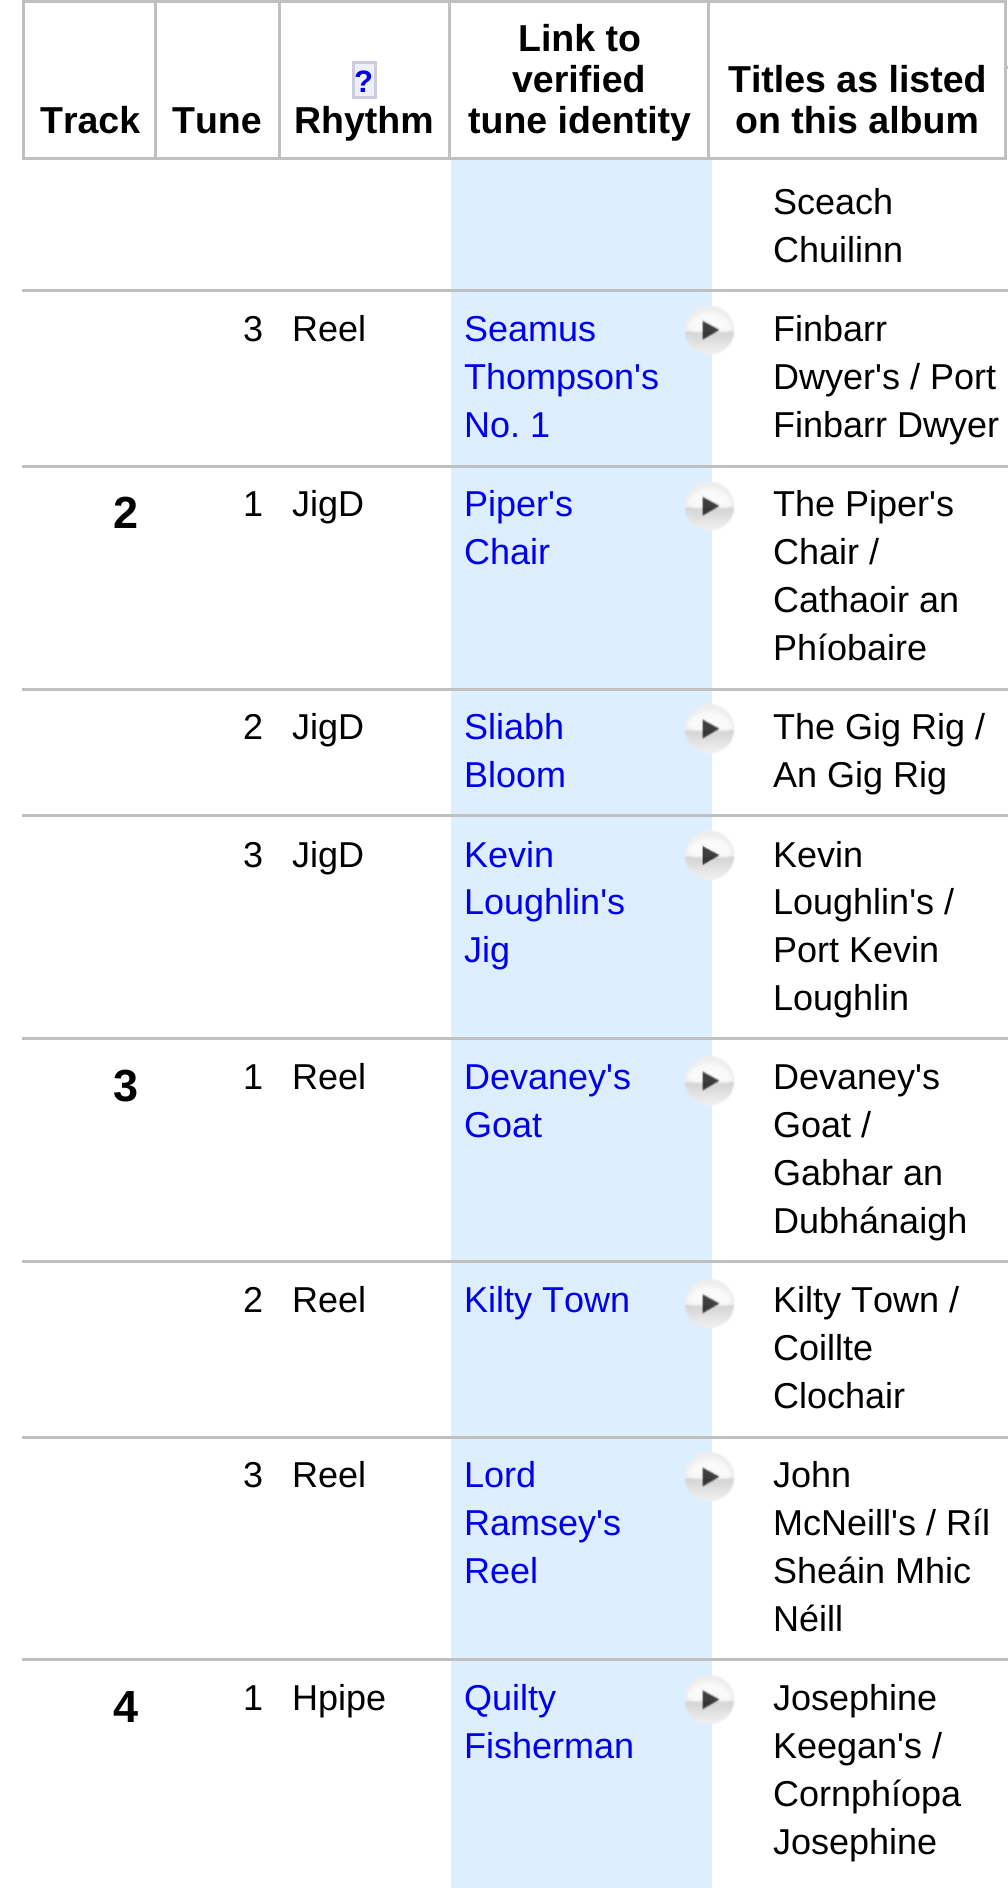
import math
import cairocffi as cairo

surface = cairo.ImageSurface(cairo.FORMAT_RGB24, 1008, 1888)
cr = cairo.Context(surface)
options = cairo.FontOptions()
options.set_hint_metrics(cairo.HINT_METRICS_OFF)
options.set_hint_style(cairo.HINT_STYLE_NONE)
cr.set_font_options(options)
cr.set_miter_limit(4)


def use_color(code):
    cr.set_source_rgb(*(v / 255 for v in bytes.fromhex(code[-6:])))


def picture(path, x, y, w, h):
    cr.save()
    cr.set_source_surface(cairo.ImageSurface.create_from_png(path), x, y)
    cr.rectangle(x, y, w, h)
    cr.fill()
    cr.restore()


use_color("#ffffff")
cr.paint()
use_color("#c0c0c0")
cr.rectangle(707, 0, 300, 3)
cr.fill()
cr.rectangle(1004, 0, 3, 160)
cr.fill()
cr.rectangle(707, 157, 300, 3)
cr.fill()
cr.rectangle(707, 0, 3, 160)
cr.fill()
cr.rectangle(448, 0, 262, 3)
cr.fill()
cr.rectangle(448, 157, 262, 3)
cr.fill()
cr.rectangle(448, 0, 3, 160)
cr.fill()
cr.rectangle(278, 0, 173, 3)
cr.fill()
cr.rectangle(278, 157, 173, 3)
cr.fill()
cr.rectangle(278, 0, 3, 160)
cr.fill()
cr.rectangle(154, 0, 127, 3)
cr.fill()
cr.rectangle(154, 157, 127, 3)
cr.fill()
cr.rectangle(154, 0, 3, 160)
cr.fill()
cr.rectangle(22, 0, 135, 3)
cr.fill()
cr.rectangle(22, 157, 135, 3)
cr.fill()
cr.rectangle(22, 0, 3, 160)
cr.fill()
cr.select_font_face("Liberation Sans", cairo.FONT_SLANT_NORMAL, cairo.FONT_WEIGHT_BOLD)
cr.set_font_size(37.5)
use_color("#000000")
cr.move_to(40, 133)
cr.show_text("Track")
cr.move_to(172, 133)
cr.show_text("Tune")
use_color("#eeeeff")
cr.rectangle(353.5, 62.5, 22, 35)
cr.fill_preserve()
use_color("#ccccdd")
cr.set_line_width(3)
cr.stroke()
cr.set_font_size(31)
use_color("#0000ee")
cr.move_to(354, 92)
cr.show_text("?")
cr.set_font_size(37.5)
use_color("#000000")
cr.move_to(294, 133)
cr.show_text("Rhythm")
cr.move_to(518, 51)
cr.show_text("Link to")
cr.move_to(512, 92)
cr.show_text("verified")
cr.move_to(468, 133)
cr.show_text("tune identity")
cr.move_to(728, 92)
cr.show_text("Titles as listed")
cr.move_to(735, 133)
cr.show_text("on this album")
use_color("#ddeeff")
cr.rectangle(451, 160, 261, 129)
cr.fill()
use_color("#c0c0c0")
cr.rectangle(1007, 66, 1, 3)
cr.fill()
cr.select_font_face("Liberation Sans")
cr.set_font_size(36)
use_color("#000000")
cr.move_to(773, 214)
cr.show_text("Sceach")
cr.move_to(773, 262)
cr.show_text("Chuilinn")
cr.move_to(243, 341)
cr.show_text("3")
cr.move_to(292, 341)
cr.show_text("Reel")
use_color("#ddeeff")
cr.rectangle(451, 292, 261, 173)
cr.fill()
use_color("#0000ee")
cr.move_to(464, 341)
cr.show_text("Seamus")
cr.move_to(464, 389)
cr.show_text("Thompson's")
cr.move_to(464, 437)
cr.show_text("No. 1")
use_color("#c0c0c0")
cr.rectangle(22, 289, 986, 3)
cr.fill()
picture("img1.png", 684, 305, 51, 50)
use_color("#000000")
cr.move_to(773, 341)
cr.show_text("Finbarr")
cr.move_to(773, 389)
cr.show_text("Dwyer's / Port")
cr.move_to(773, 437)
cr.show_text("Finbarr Dwyer")
cr.select_font_face("Liberation Sans", cairo.FONT_SLANT_NORMAL, cairo.FONT_WEIGHT_BOLD)
cr.set_font_size(45)
cr.move_to(113, 528)
cr.show_text("2")
cr.select_font_face("Liberation Sans")
cr.set_font_size(36)
cr.move_to(243, 516)
cr.show_text("1")
cr.move_to(292, 516)
cr.show_text("JigD")
use_color("#ddeeff")
cr.rectangle(451, 468, 261, 220)
cr.fill()
use_color("#0000ee")
cr.move_to(464, 516)
cr.show_text("Piper's")
cr.move_to(464, 564)
cr.show_text("Chair")
use_color("#c0c0c0")
cr.rectangle(22, 465, 986, 3)
cr.fill()
picture("img1.png", 684, 481, 51, 50)
use_color("#000000")
cr.move_to(773, 516)
cr.show_text("The Piper's")
cr.move_to(773, 564)
cr.show_text("Chair /")
cr.move_to(773, 612)
cr.show_text("Cathaoir an")
cr.move_to(773, 660)
cr.show_text("Phíobaire")
cr.move_to(243, 739)
cr.show_text("2")
cr.move_to(292, 739)
cr.show_text("JigD")
use_color("#ddeeff")
cr.rectangle(451, 691, 261, 123)
cr.fill()
use_color("#0000ee")
cr.move_to(464, 739)
cr.show_text("Sliabh")
cr.move_to(464, 787)
cr.show_text("Bloom")
use_color("#c0c0c0")
cr.rectangle(22, 688, 986, 3)
cr.fill()
picture("img2.png", 684, 704, 51, 50)
use_color("#000000")
cr.move_to(773, 739)
cr.show_text("The Gig Rig /")
cr.move_to(773, 787)
cr.show_text("An Gig Rig")
cr.move_to(243, 867)
cr.show_text("3")
cr.move_to(292, 867)
cr.show_text("JigD")
use_color("#ddeeff")
cr.rectangle(451, 817, 261, 220)
cr.fill()
use_color("#0000ee")
cr.move_to(464, 867)
cr.show_text("Kevin")
cr.move_to(464, 914)
cr.show_text("Loughlin's")
cr.move_to(464, 962)
cr.show_text("Jig")
use_color("#c0c0c0")
cr.rectangle(22, 814, 986, 3)
cr.fill()
picture("img3.png", 684, 830, 51, 50)
use_color("#000000")
cr.move_to(773, 867)
cr.show_text("Kevin")
cr.move_to(773, 914)
cr.show_text("Loughlin's /")
cr.move_to(773, 962)
cr.show_text("Port Kevin")
cr.move_to(773, 1010)
cr.show_text("Loughlin")
cr.select_font_face("Liberation Sans", cairo.FONT_SLANT_NORMAL, cairo.FONT_WEIGHT_BOLD)
cr.set_font_size(45)
cr.move_to(113, 1101)
cr.show_text("3")
cr.select_font_face("Liberation Sans")
cr.set_font_size(36)
cr.move_to(243, 1089)
cr.show_text("1")
cr.move_to(292, 1089)
cr.show_text("Reel")
use_color("#ddeeff")
cr.rectangle(451, 1040, 261, 220)
cr.fill()
use_color("#0000ee")
cr.move_to(464, 1089)
cr.show_text("Devaney's")
cr.move_to(464, 1137)
cr.show_text("Goat")
use_color("#c0c0c0")
cr.rectangle(22, 1037, 986, 3)
cr.fill()
picture("img2.png", 684, 1056, 51, 50)
use_color("#000000")
cr.move_to(773, 1089)
cr.show_text("Devaney's")
cr.move_to(773, 1137)
cr.show_text("Goat /")
cr.move_to(773, 1185)
cr.show_text("Gabhar an")
cr.move_to(773, 1233)
cr.show_text("Dubhánaigh")
cr.move_to(243, 1312)
cr.show_text("2")
cr.move_to(292, 1312)
cr.show_text("Reel")
use_color("#ddeeff")
cr.rectangle(451, 1263, 261, 173)
cr.fill()
use_color("#0000ee")
cr.move_to(464, 1312)
cr.show_text("Kilty Town")
use_color("#c0c0c0")
cr.rectangle(22, 1260, 986, 3)
cr.fill()
picture("img4.png", 684, 1278, 51, 51)
use_color("#000000")
cr.move_to(773, 1312)
cr.show_text("Kilty Town /")
cr.move_to(773, 1360)
cr.show_text("Coillte")
cr.move_to(773, 1408)
cr.show_text("Clochair")
cr.move_to(243, 1487)
cr.show_text("3")
cr.move_to(292, 1487)
cr.show_text("Reel")
use_color("#ddeeff")
cr.rectangle(451, 1439, 261, 219)
cr.fill()
use_color("#0000ee")
cr.move_to(464, 1487)
cr.show_text("Lord")
cr.move_to(464, 1535)
cr.show_text("Ramsey's")
cr.move_to(464, 1583)
cr.show_text("Reel")
use_color("#c0c0c0")
cr.rectangle(22, 1436, 986, 3)
cr.fill()
picture("img2.png", 684, 1452, 51, 50)
use_color("#000000")
cr.move_to(773, 1487)
cr.show_text("John")
cr.move_to(773, 1535)
cr.show_text("McNeill's / Ríl")
cr.move_to(773, 1583)
cr.show_text("Sheáin Mhic")
cr.move_to(773, 1631)
cr.show_text("Néill")
cr.select_font_face("Liberation Sans", cairo.FONT_SLANT_NORMAL, cairo.FONT_WEIGHT_BOLD)
cr.set_font_size(45)
cr.move_to(113, 1722)
cr.show_text("4")
cr.select_font_face("Liberation Sans")
cr.set_font_size(36)
cr.move_to(243, 1710)
cr.show_text("1")
cr.move_to(292, 1710)
cr.show_text("Hpipe")
use_color("#ddeeff")
cr.rectangle(451, 1661, 261, 227)
cr.fill()
use_color("#0000ee")
cr.move_to(464, 1710)
cr.show_text("Quilty")
cr.move_to(464, 1758)
cr.show_text("Fisherman")
use_color("#c0c0c0")
cr.rectangle(22, 1658, 986, 3)
cr.fill()
picture("img5.png", 684, 1674, 51, 51)
use_color("#000000")
cr.move_to(773, 1710)
cr.show_text("Josephine")
cr.move_to(773, 1758)
cr.show_text("Keegan's /")
cr.move_to(773, 1806)
cr.show_text("Cornphíopa")
cr.move_to(773, 1854)
cr.show_text("Josephine")
surface.write_to_png("result.png")
